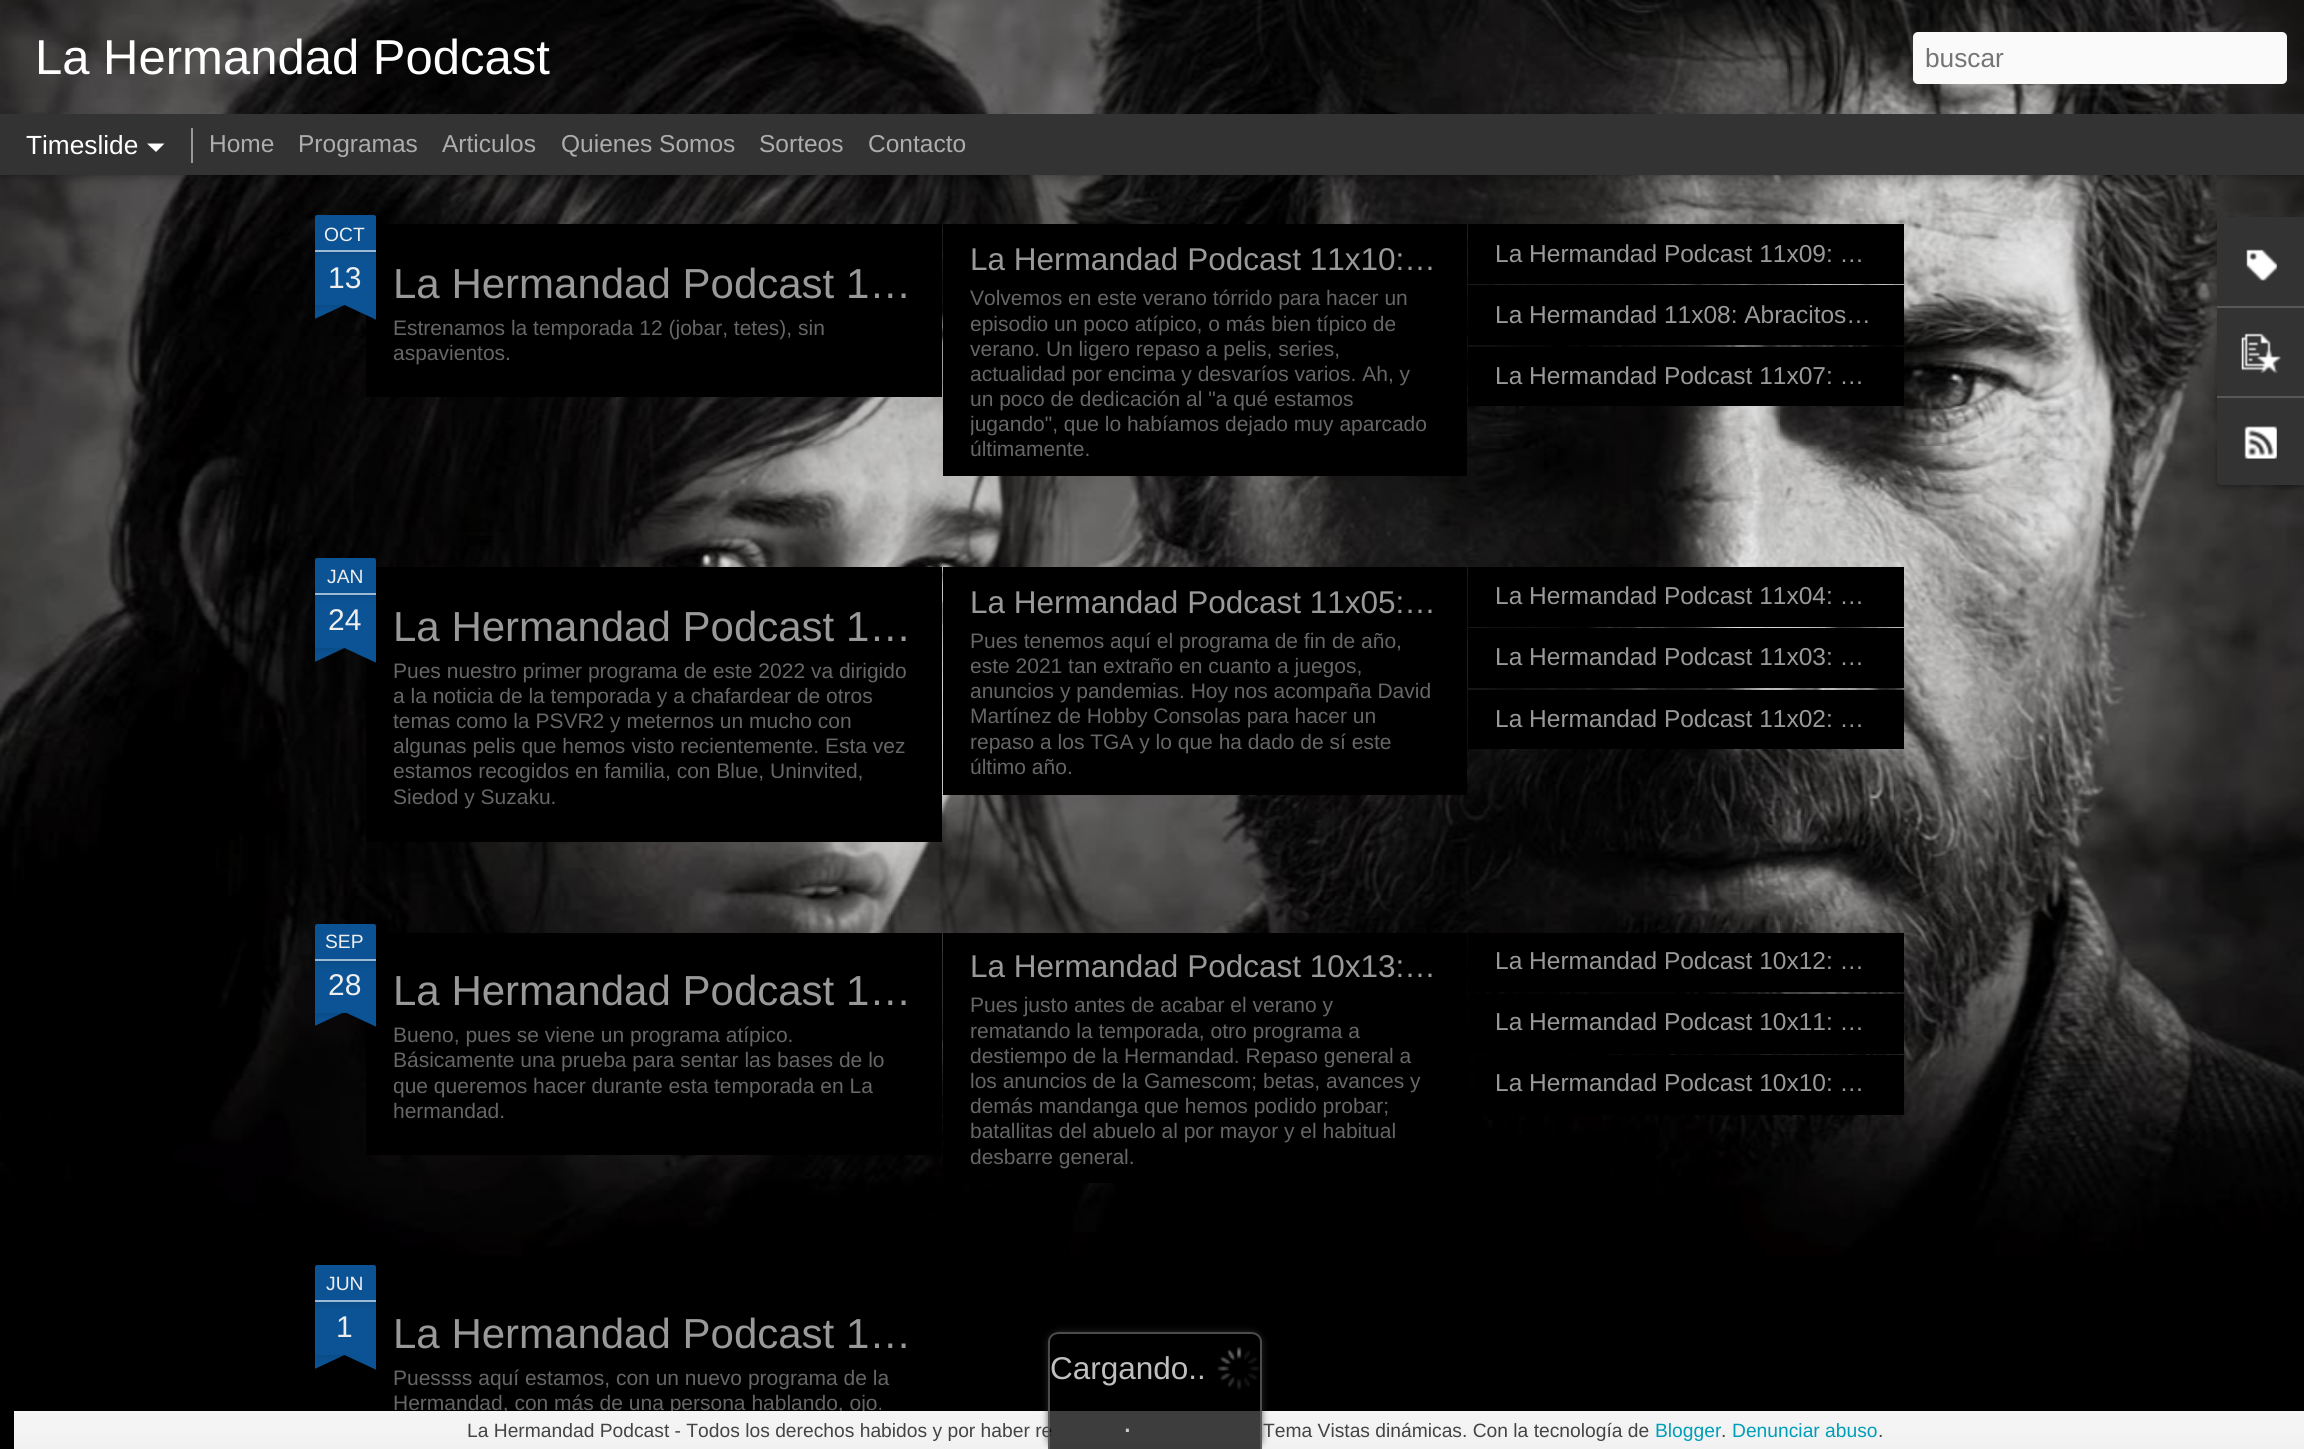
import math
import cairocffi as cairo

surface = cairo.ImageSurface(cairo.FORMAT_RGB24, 2304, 1449)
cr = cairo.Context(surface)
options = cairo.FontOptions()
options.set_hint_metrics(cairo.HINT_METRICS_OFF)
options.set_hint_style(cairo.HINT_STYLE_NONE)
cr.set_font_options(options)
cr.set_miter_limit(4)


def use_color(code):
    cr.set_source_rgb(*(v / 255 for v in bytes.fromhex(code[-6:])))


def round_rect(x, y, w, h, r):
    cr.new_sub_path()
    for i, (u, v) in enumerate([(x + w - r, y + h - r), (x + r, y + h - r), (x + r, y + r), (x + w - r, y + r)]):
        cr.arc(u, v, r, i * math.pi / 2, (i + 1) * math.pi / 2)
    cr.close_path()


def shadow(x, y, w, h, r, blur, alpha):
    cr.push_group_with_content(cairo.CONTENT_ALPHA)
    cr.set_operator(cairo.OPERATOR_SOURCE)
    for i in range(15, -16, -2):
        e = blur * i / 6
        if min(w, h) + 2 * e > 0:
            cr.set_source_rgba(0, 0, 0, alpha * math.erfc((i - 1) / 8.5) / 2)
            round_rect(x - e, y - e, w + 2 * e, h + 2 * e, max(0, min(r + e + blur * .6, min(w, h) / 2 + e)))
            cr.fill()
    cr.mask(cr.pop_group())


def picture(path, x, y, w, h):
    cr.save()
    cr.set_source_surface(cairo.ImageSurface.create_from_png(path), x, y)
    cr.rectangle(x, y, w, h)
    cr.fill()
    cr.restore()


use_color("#000000")
cr.paint()
picture("img1.png", 0, 175, 2304, 1082)
shadow(0, 114, 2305, 61, 0, 7, 0.5)
picture("img2.png", 0, 0, 2304, 114)
cr.select_font_face("Liberation Sans")
cr.set_font_size(49)
use_color("#ffffff")
cr.move_to(35, 74)
cr.show_text("La Hermandad Podcast")
use_color("#fafafa")
round_rect(1913, 32, 374, 52, 5)
cr.fill()
cr.set_font_size(26.25)
use_color("#757575")
cr.move_to(1925, 67)
cr.show_text("buscar")
use_color("#333333")
cr.rectangle(0, 114, 2304, 61)
cr.fill()
use_color("#ffffff")
cr.move_to(26, 154)
cr.show_text("Timeslide")
cr.new_path()
cr.move_to(147, 143.5)
cr.line_to(164.5, 143.5)
cr.line_to(156, 152)
cr.close_path()
cr.fill()
use_color("#999999")
cr.rectangle(191, 128, 2, 35)
cr.fill()
cr.set_font_size(24.5)
use_color("#adadad")
cr.move_to(209, 152)
cr.show_text("Home")
cr.move_to(298, 152)
cr.show_text("Programas")
cr.move_to(442, 152)
cr.show_text("Articulos")
cr.move_to(561, 152)
cr.show_text("Quienes Somos")
cr.move_to(759, 152)
cr.show_text("Sorteos")
cr.move_to(868, 152)
cr.show_text("Contacto")
use_color("#000000")
cr.rectangle(366, 224, 576, 173)
cr.fill()
use_color("#0b5394")
cr.rectangle(315, 252, 61, 53)
cr.fill()
use_color("#000000")
shadow(315, 215, 61, 37, 2, 4.5, 0.2)
use_color("#0b5394")
cr.new_path()
cr.move_to(317, 215)
cr.line_to(374, 215)
cr.curve_to(375, 215, 376, 216, 376, 217)
cr.line_to(376, 252)
cr.line_to(315, 252)
cr.line_to(315, 217)
cr.curve_to(315, 216, 316, 215, 317, 215)
cr.close_path()
cr.fill()
use_color("#9dbad4")
cr.rectangle(315, 250, 61, 2)
cr.fill()
cr.set_font_size(19.25)
use_color("#eeeeee")
cr.move_to(324, 241)
cr.show_text("OCT")
cr.set_font_size(30)
cr.move_to(328, 288)
cr.show_text("13")
cr.save()
cr.rectangle(315, 305, 61, 17)
cr.clip()
use_color("#0b5394")
cr.new_path()
cr.move_to(299, 307)
cr.line_to(378, 270)
cr.line_to(385, 286)
cr.line_to(306, 323)
cr.close_path()
cr.fill()
cr.restore()
cr.save()
cr.rectangle(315, 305, 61, 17)
cr.clip()
use_color("#000000")
shadow(305, 287, 87, 18, 0, 4.5, 0.2)
cr.restore()
cr.save()
cr.rectangle(315, 305, 61, 17)
cr.clip()
use_color("#0b5394")
cr.new_path()
cr.move_to(311, 270)
cr.line_to(391, 307)
cr.line_to(383, 323)
cr.line_to(304, 286)
cr.close_path()
cr.fill()
cr.restore()
cr.set_font_size(42)
use_color("#999999")
cr.move_to(393, 298)
cr.show_text("La Hermandad Podcast 1…")
cr.set_font_size(21)
use_color("#666666")
cr.move_to(393, 335)
cr.show_text("Estrenamos la temporada 12 (jobar, tetes), sin")
cr.move_to(393, 360)
cr.show_text("aspavientos.")
use_color("#000000")
cr.rectangle(943, 224, 524, 252)
cr.fill()
cr.set_font_size(31.5)
use_color("#999999")
cr.move_to(970, 270)
cr.show_text("La Hermandad Podcast 11x10:…")
cr.set_font_size(21)
use_color("#666666")
cr.move_to(970, 305)
cr.show_text("Volvemos en este verano tórrido para hacer un")
cr.move_to(970, 331)
cr.show_text("episodio un poco atípico, o más bien típico de")
cr.move_to(970, 356)
cr.show_text("verano. Un ligero repaso a pelis, series,")
cr.move_to(970, 381)
cr.show_text("actualidad por encima y desvaríos varios. Ah, y")
cr.move_to(970, 406)
cr.show_text("un poco de dedicación al \"a qué estamos")
cr.save()
cr.rectangle(971, 285, 468, 177)
cr.clip()
cr.move_to(970, 431)
cr.show_text("jugando\", que lo habíamos dejado muy aparcado")
cr.restore()
cr.move_to(970, 456)
cr.show_text("últimamente.")
use_color("#000000")
cr.rectangle(1468, 224, 436, 60)
cr.fill()
cr.set_font_size(24.5)
use_color("#999999")
cr.move_to(1495, 262)
cr.show_text("La Hermandad Podcast 11x09: …")
use_color("#000000")
cr.rectangle(1468, 285, 436, 60)
cr.fill()
use_color("#999999")
cr.move_to(1495, 323)
cr.show_text("La Hermandad 11x08: Abracitos…")
use_color("#000000")
cr.rectangle(1468, 347, 436, 59)
cr.fill()
use_color("#999999")
cr.move_to(1495, 384)
cr.show_text("La Hermandad Podcast 11x07: …")
use_color("#000000")
cr.rectangle(366, 567, 576, 275)
cr.fill()
use_color("#0b5394")
cr.rectangle(315, 595, 61, 53)
cr.fill()
use_color("#000000")
shadow(315, 558, 61, 37, 2, 4.5, 0.2)
use_color("#0b5394")
cr.new_path()
cr.move_to(317, 558)
cr.line_to(374, 558)
cr.curve_to(375, 558, 376, 559, 376, 560)
cr.line_to(376, 595)
cr.line_to(315, 595)
cr.line_to(315, 560)
cr.curve_to(315, 559, 316, 558, 317, 558)
cr.close_path()
cr.fill()
use_color("#9dbad4")
cr.rectangle(315, 593, 61, 2)
cr.fill()
cr.set_font_size(19.25)
use_color("#eeeeee")
cr.move_to(327, 583)
cr.show_text("JAN")
cr.set_font_size(30)
cr.move_to(328, 630)
cr.show_text("24")
cr.save()
cr.rectangle(315, 648, 61, 17)
cr.clip()
use_color("#0b5394")
cr.new_path()
cr.move_to(299, 650)
cr.line_to(378, 613)
cr.line_to(385, 629)
cr.line_to(306, 666)
cr.close_path()
cr.fill()
cr.restore()
cr.save()
cr.rectangle(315, 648, 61, 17)
cr.clip()
use_color("#000000")
shadow(305, 630, 87, 18, 0, 4.5, 0.2)
cr.restore()
cr.save()
cr.rectangle(315, 648, 61, 17)
cr.clip()
use_color("#0b5394")
cr.new_path()
cr.move_to(311, 613)
cr.line_to(391, 650)
cr.line_to(383, 666)
cr.line_to(304, 629)
cr.close_path()
cr.fill()
cr.restore()
cr.set_font_size(42)
use_color("#999999")
cr.move_to(393, 641)
cr.show_text("La Hermandad Podcast 1…")
cr.set_font_size(21)
use_color("#666666")
cr.move_to(393, 678)
cr.show_text("Pues nuestro primer programa de este 2022 va dirigido")
cr.move_to(393, 703)
cr.show_text("a la noticia de la temporada y a chafardear de otros")
cr.move_to(393, 728)
cr.show_text("temas como la PSVR2 y meternos un mucho con")
cr.move_to(393, 753)
cr.show_text("algunas pelis que hemos visto recientemente. Esta vez")
cr.save()
cr.rectangle(394, 658, 520, 152)
cr.clip()
cr.move_to(393, 778)
cr.show_text("estamos recogidos en familia, con Blue, Uninvited,")
cr.restore()
cr.move_to(393, 804)
cr.show_text("Siedod y Suzaku.")
use_color("#000000")
cr.rectangle(943, 567, 524, 228)
cr.fill()
cr.set_font_size(31.5)
use_color("#999999")
cr.move_to(970, 613)
cr.show_text("La Hermandad Podcast 11x05:…")
cr.set_font_size(21)
use_color("#666666")
cr.move_to(970, 648)
cr.show_text("Pues tenemos aquí el programa de fin de año,")
cr.move_to(970, 673)
cr.show_text("este 2021 tan extraño en cuanto a juegos,")
cr.move_to(970, 698)
cr.show_text("anuncios y pandemias. Hoy nos acompaña David")
cr.move_to(970, 723)
cr.show_text("Martínez de Hobby Consolas para hacer un")
cr.move_to(970, 749)
cr.show_text("repaso a los TGA y lo que ha dado de sí este")
cr.move_to(970, 774)
cr.show_text("último año.")
use_color("#000000")
cr.rectangle(1468, 567, 436, 60)
cr.fill()
cr.set_font_size(24.5)
use_color("#999999")
cr.move_to(1495, 604)
cr.show_text("La Hermandad Podcast 11x04: …")
use_color("#000000")
cr.rectangle(1468, 628, 436, 60)
cr.fill()
use_color("#999999")
cr.move_to(1495, 665)
cr.show_text("La Hermandad Podcast 11x03: …")
use_color("#000000")
cr.rectangle(1468, 690, 436, 59)
cr.fill()
use_color("#999999")
cr.move_to(1495, 727)
cr.show_text("La Hermandad Podcast 11x02: …")
use_color("#000000")
cr.rectangle(366, 933, 576, 222)
cr.fill()
use_color("#0b5394")
cr.rectangle(315, 961, 61, 52)
cr.fill()
use_color("#000000")
shadow(315, 924, 61, 37, 2, 4.5, 0.2)
use_color("#0b5394")
cr.new_path()
cr.move_to(317, 924)
cr.line_to(374, 924)
cr.curve_to(375, 924, 376, 925, 376, 926)
cr.line_to(376, 961)
cr.line_to(315, 961)
cr.line_to(315, 926)
cr.curve_to(315, 925, 316, 924, 317, 924)
cr.close_path()
cr.fill()
use_color("#9dbad4")
cr.rectangle(315, 959, 61, 2)
cr.fill()
cr.set_font_size(19.25)
use_color("#eeeeee")
cr.move_to(325, 948)
cr.show_text("SEP")
cr.set_font_size(30)
cr.move_to(328, 995)
cr.show_text("28")
cr.save()
cr.rectangle(315, 1013, 61, 18)
cr.clip()
use_color("#0b5394")
cr.new_path()
cr.move_to(299, 1014)
cr.line_to(378, 977)
cr.line_to(385, 993)
cr.line_to(306, 1030)
cr.close_path()
cr.fill()
cr.restore()
cr.save()
cr.rectangle(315, 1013, 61, 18)
cr.clip()
use_color("#000000")
shadow(305, 996, 87, 17, 0, 4.5, 0.2)
cr.restore()
cr.save()
cr.rectangle(315, 1013, 61, 18)
cr.clip()
use_color("#0b5394")
cr.new_path()
cr.move_to(311, 977)
cr.line_to(391, 1014)
cr.line_to(383, 1030)
cr.line_to(304, 993)
cr.close_path()
cr.fill()
cr.restore()
cr.set_font_size(42)
use_color("#999999")
cr.move_to(393, 1005)
cr.show_text("La Hermandad Podcast 1…")
cr.set_font_size(21)
use_color("#666666")
cr.move_to(393, 1042)
cr.show_text("Bueno, pues se viene un programa atípico.")
cr.move_to(393, 1067)
cr.show_text("Básicamente una prueba para sentar las bases de lo")
cr.save()
cr.rectangle(394, 1024, 520, 100)
cr.clip()
cr.move_to(393, 1093)
cr.show_text("que queremos hacer durante esta temporada en La")
cr.restore()
cr.move_to(393, 1118)
cr.show_text("hermandad.")
use_color("#000000")
cr.rectangle(943, 933, 524, 250)
cr.fill()
cr.set_font_size(31.5)
use_color("#999999")
cr.move_to(970, 977)
cr.show_text("La Hermandad Podcast 10x13:…")
cr.set_font_size(21)
use_color("#666666")
cr.move_to(970, 1012)
cr.show_text("Pues justo antes de acabar el verano y")
cr.move_to(970, 1038)
cr.show_text("rematando la temporada, otro programa a")
cr.move_to(970, 1063)
cr.show_text("destiempo de la Hermandad. Repaso general a")
cr.move_to(970, 1088)
cr.show_text("los anuncios de la Gamescom; betas, avances y")
cr.move_to(970, 1113)
cr.show_text("demás mandanga que hemos podido probar;")
cr.move_to(970, 1138)
cr.show_text("batallitas del abuelo al por mayor y el habitual")
cr.move_to(970, 1164)
cr.show_text("desbarre general.")
use_color("#000000")
cr.rectangle(1468, 933, 436, 59)
cr.fill()
cr.set_font_size(24.5)
use_color("#999999")
cr.move_to(1495, 969)
cr.show_text("La Hermandad Podcast 10x12: …")
use_color("#000000")
cr.rectangle(1468, 994, 436, 60)
cr.fill()
use_color("#999999")
cr.move_to(1495, 1030)
cr.show_text("La Hermandad Podcast 10x11: …")
use_color("#000000")
cr.rectangle(1476, 1055, 428, 60)
cr.fill()
use_color("#999999")
cr.move_to(1495, 1091)
cr.show_text("La Hermandad Podcast 10x10: …")
use_color("#0b5394")
cr.rectangle(315, 1302, 61, 53)
cr.fill()
use_color("#000000")
shadow(315, 1265, 61, 37, 2, 4.5, 0.2)
use_color("#0b5394")
cr.new_path()
cr.move_to(317, 1265)
cr.line_to(374, 1265)
cr.curve_to(375, 1265, 376, 1266, 376, 1267)
cr.line_to(376, 1302)
cr.line_to(315, 1302)
cr.line_to(315, 1267)
cr.curve_to(315, 1266, 316, 1265, 317, 1265)
cr.close_path()
cr.fill()
use_color("#9dbad4")
cr.rectangle(315, 1300, 61, 2)
cr.fill()
cr.set_font_size(19.25)
use_color("#eeeeee")
cr.move_to(326, 1290)
cr.show_text("JUN")
cr.set_font_size(30)
cr.move_to(336, 1337)
cr.show_text("1")
cr.save()
cr.rectangle(315, 1355, 61, 17)
cr.clip()
use_color("#0b5394")
cr.new_path()
cr.move_to(299, 1357)
cr.line_to(378, 1320)
cr.line_to(385, 1336)
cr.line_to(306, 1373)
cr.close_path()
cr.fill()
cr.restore()
cr.save()
cr.rectangle(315, 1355, 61, 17)
cr.clip()
use_color("#000000")
shadow(305, 1337, 87, 18, 0, 4.5, 0.2)
cr.restore()
cr.save()
cr.rectangle(315, 1355, 61, 17)
cr.clip()
use_color("#0b5394")
cr.new_path()
cr.move_to(311, 1320)
cr.line_to(391, 1357)
cr.line_to(383, 1373)
cr.line_to(304, 1336)
cr.close_path()
cr.fill()
cr.restore()
cr.set_font_size(42)
use_color("#999999")
cr.move_to(393, 1348)
cr.show_text("La Hermandad Podcast 1…")
cr.set_font_size(21)
use_color("#666666")
cr.move_to(393, 1385)
cr.show_text("Puessss aquí estamos, con un nuevo programa de la")
cr.move_to(393, 1410)
cr.show_text("Hermandad, con más de una persona hablando, ojo.")
use_color("#000000")
shadow(2217, 219, 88, 268, 4, 2.5, 0.3)
use_color("#333333")
cr.new_path()
cr.move_to(2221, 217)
cr.line_to(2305, 217)
cr.line_to(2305, 485)
cr.line_to(2221, 485)
cr.curve_to(2219, 485, 2217, 483, 2217, 481)
cr.line_to(2217, 221)
cr.curve_to(2217, 219, 2219, 217, 2221, 217)
cr.close_path()
cr.fill()
picture("img3.png", 2246, 249, 31, 32)
use_color("#585858")
cr.rectangle(2217, 306, 87, 2)
cr.fill()
picture("img4.png", 2241, 333, 40, 41)
use_color("#333333")
cr.new_path()
cr.move_to(2217, 396)
cr.line_to(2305, 396)
cr.line_to(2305, 485)
cr.line_to(2221, 485)
cr.curve_to(2219, 485, 2217, 483, 2217, 481)
cr.close_path()
cr.fill()
use_color("#585858")
cr.rectangle(2217, 396, 87, 2)
cr.fill()
picture("img5.png", 2244, 426, 33, 33)
gradient = cairo.LinearGradient(1175, 1410, 1175, 1449)
gradient.add_color_stop_rgba(0, 0.961, 0.961, 0.961, 1)
gradient.add_color_stop_rgba(1, 0.945, 0.945, 0.945, 1)
cr.set_source(gradient)
cr.rectangle(14, 1411, 2290, 38)
cr.fill()
cr.save()
cr.set_fill_rule(cairo.FILL_RULE_EVEN_ODD)
cr.new_path()
cr.move_to(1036, 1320)
cr.line_to(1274, 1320)
cr.line_to(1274, 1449)
cr.line_to(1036, 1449)
cr.close_path()
cr.move_to(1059, 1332)
cr.line_to(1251, 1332)
cr.curve_to(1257, 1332, 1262, 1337, 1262, 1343)
cr.line_to(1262, 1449)
cr.line_to(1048, 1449)
cr.line_to(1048, 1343)
cr.curve_to(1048, 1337, 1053, 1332, 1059, 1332)
cr.close_path()
cr.clip()
use_color("#333333")
shadow(1048, 1332, 214, 117, 11, 3.5, 0.75)
cr.restore()
cr.set_font_size(19.25)
use_color("#444444")
cr.move_to(467, 1437)
cr.show_text("La Hermandad Podcast - Todos los derechos habidos y por haber re")
cr.set_source_rgba(0, 0, 0, 0.75)
cr.new_path()
cr.move_to(1059, 1332)
cr.line_to(1251, 1332)
cr.curve_to(1257, 1332, 1262, 1337, 1262, 1343)
cr.line_to(1262, 1449)
cr.line_to(1048, 1449)
cr.line_to(1048, 1343)
cr.curve_to(1048, 1337, 1053, 1332, 1059, 1332)
cr.close_path()
cr.fill()
cr.set_source_rgba(0.4, 0.4, 0.4, 0.75)
cr.set_fill_rule(cairo.FILL_RULE_EVEN_ODD)
cr.new_path()
cr.move_to(1059, 1332)
cr.line_to(1251, 1332)
cr.curve_to(1257, 1332, 1262, 1336, 1262, 1342)
cr.line_to(1262, 1449)
cr.line_to(1048, 1449)
cr.line_to(1048, 1342)
cr.curve_to(1048, 1336, 1053, 1332, 1059, 1332)
cr.close_path()
cr.move_to(1059, 1334)
cr.line_to(1251, 1334)
cr.curve_to(1256, 1334, 1260, 1337, 1260, 1342)
cr.line_to(1260, 1449)
cr.line_to(1050, 1449)
cr.line_to(1050, 1342)
cr.curve_to(1050, 1337, 1054, 1334, 1059, 1334)
cr.close_path()
cr.fill()
picture("img6.png", 1218, 1347, 42, 43)
cr.set_font_size(31.5)
use_color("#bfbfbf")
cr.move_to(1050, 1379)
cr.show_text("Cargando..")
use_color("#cccccc")
cr.move_to(1123, 1432)
cr.show_text(".")
cr.set_font_size(19.25)
use_color("#444444")
cr.move_to(1263, 1437)
cr.show_text("Tema Vistas dinámicas. Con la tecnología de")
use_color("#009eb8")
cr.move_to(1655, 1437)
cr.show_text("Blogger")
use_color("#444444")
cr.move_to(1721, 1437)
cr.show_text(".")
use_color("#009eb8")
cr.move_to(1732, 1437)
cr.show_text("Denunciar abuso")
use_color("#444444")
cr.move_to(1878, 1437)
cr.show_text(".")
surface.write_to_png("result.png")
